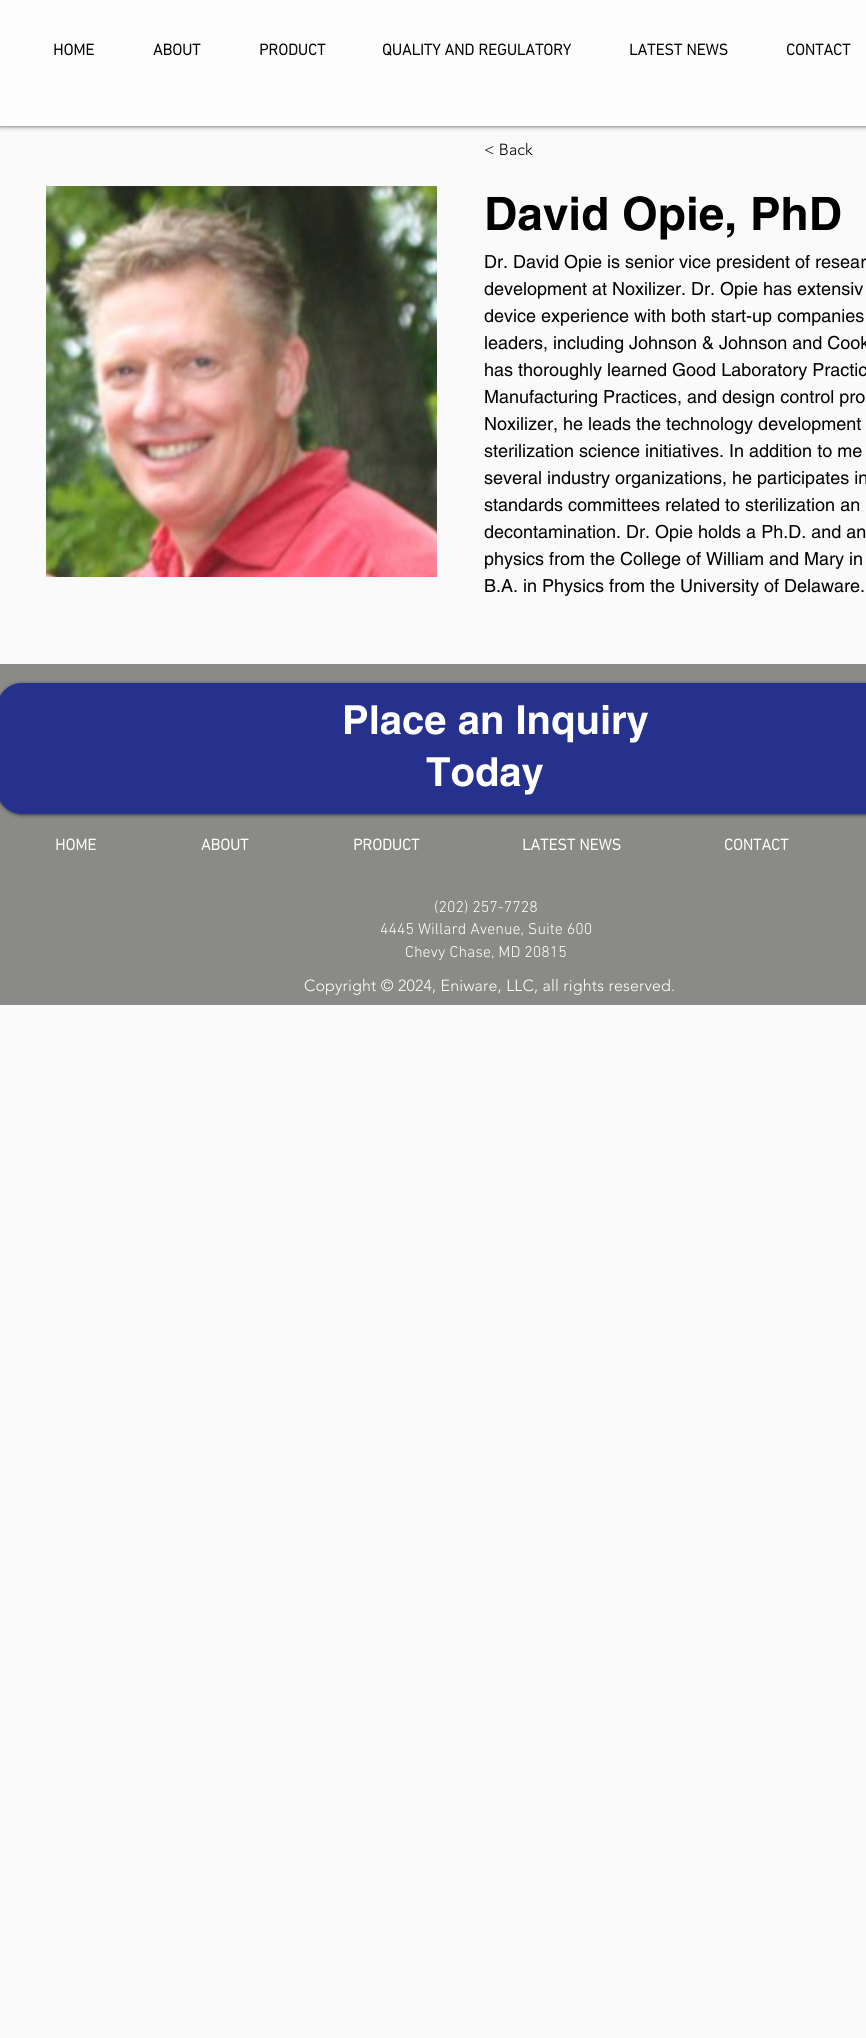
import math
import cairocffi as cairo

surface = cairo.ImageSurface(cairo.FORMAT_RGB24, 866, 2038)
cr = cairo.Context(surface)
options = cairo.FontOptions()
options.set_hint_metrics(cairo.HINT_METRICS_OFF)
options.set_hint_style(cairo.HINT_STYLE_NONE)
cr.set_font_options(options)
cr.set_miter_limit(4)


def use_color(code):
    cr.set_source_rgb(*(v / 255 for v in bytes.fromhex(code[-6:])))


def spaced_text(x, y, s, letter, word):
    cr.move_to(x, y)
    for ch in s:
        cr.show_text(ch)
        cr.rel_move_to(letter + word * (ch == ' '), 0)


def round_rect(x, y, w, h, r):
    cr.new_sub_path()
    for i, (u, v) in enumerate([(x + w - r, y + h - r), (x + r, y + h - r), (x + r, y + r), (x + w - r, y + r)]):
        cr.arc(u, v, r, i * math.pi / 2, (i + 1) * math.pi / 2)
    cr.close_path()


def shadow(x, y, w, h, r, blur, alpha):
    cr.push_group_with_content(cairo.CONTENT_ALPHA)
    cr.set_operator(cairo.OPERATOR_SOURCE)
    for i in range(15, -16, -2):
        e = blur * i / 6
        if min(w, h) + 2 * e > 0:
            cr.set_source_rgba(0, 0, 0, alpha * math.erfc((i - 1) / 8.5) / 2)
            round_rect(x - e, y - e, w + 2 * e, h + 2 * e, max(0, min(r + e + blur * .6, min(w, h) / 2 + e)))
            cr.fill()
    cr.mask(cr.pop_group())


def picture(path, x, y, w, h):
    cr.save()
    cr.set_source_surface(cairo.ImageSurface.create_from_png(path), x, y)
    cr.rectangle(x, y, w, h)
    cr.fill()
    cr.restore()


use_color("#fafafa")
cr.paint()
use_color("#000000")
shadow(0, 0, 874, 126, 0, 2.5, 0.7)
use_color("#fdfdfd")
cr.rectangle(0, 0, 866, 126)
cr.fill()
cr.select_font_face("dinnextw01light", cairo.FONT_SLANT_NORMAL, cairo.FONT_WEIGHT_BOLD)
cr.set_font_size(16)
use_color("#000000")
cr.move_to(53, 55)
cr.show_text("HOME")
cr.move_to(153, 55)
cr.show_text("ABOUT")
cr.move_to(259, 55)
cr.show_text("PRODUCT")
cr.move_to(382, 55)
cr.show_text("QUALITY AND REGULATORY")
cr.move_to(629, 55)
cr.show_text("LATEST NEWS")
cr.move_to(786, 55)
cr.show_text("CONTACT")
cr.select_font_face("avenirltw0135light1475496 Light")
cr.move_to(484, 155)
cr.show_text("< Back")
picture("img1.png", 46, 186, 391, 391)
cr.select_font_face("helvetica", cairo.FONT_SLANT_NORMAL, cairo.FONT_WEIGHT_BOLD)
cr.set_font_size(46)
cr.move_to(484, 230)
cr.show_text("David Opie, PhD")
cr.select_font_face("helvetica")
cr.set_font_size(18)
cr.move_to(484, 268)
cr.show_text("Dr. David Opie is senior vice president of resear")
cr.move_to(484, 295)
cr.show_text("development at Noxilizer. Dr. Opie has extensiv")
cr.move_to(484, 322)
cr.show_text("device experience with both start-up companies")
cr.move_to(484, 349)
cr.show_text("leaders, including Johnson & Johnson and Cook")
cr.move_to(484, 376)
cr.show_text("has thoroughly learned Good Laboratory Practic")
cr.move_to(484, 403)
cr.show_text("Manufacturing Practices, and design control pro")
cr.move_to(484, 430)
cr.show_text("Noxilizer, he leads the technology development")
cr.move_to(484, 457)
cr.show_text("sterilization science initiatives. In addition to me")
cr.move_to(484, 484)
cr.show_text("several industry organizations, he participates in")
cr.move_to(484, 511)
cr.show_text("standards committees related to sterilization an")
cr.move_to(484, 538)
cr.show_text("decontamination. Dr. Opie holds a Ph.D. and an")
cr.move_to(484, 565)
cr.show_text("physics from the College of William and Mary in")
cr.move_to(484, 592)
cr.show_text("B.A. in Physics from the University of Delaware.")
use_color("#8a8a88")
cr.rectangle(0, 664, 866, 341)
cr.fill()
use_color("#000000")
shadow(-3, 684, 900, 131, 25, 2, 0.6)
use_color("#25318d")
round_rect(-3, 683, 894, 131, 25)
cr.fill()
cr.select_font_face("helvetica", cairo.FONT_SLANT_NORMAL, cairo.FONT_WEIGHT_BOLD)
cr.set_font_size(40)
use_color("#fffffe")
cr.move_to(342, 734)
cr.show_text("Place an Inquiry")
cr.move_to(426, 786)
cr.show_text("Today")
cr.select_font_face("dinnextw01light", cairo.FONT_SLANT_NORMAL, cairo.FONT_WEIGHT_BOLD)
cr.set_font_size(16)
cr.move_to(55, 850)
cr.show_text("HOME")
cr.move_to(201, 850)
cr.show_text("ABOUT")
cr.move_to(353, 850)
cr.show_text("PRODUCT")
cr.move_to(522, 850)
cr.show_text("LATEST NEWS")
cr.move_to(724, 850)
cr.show_text("CONTACT")
cr.select_font_face("dinnextw01light Light")
cr.move_to(434, 912)
cr.show_text("(202) 257-7728")
cr.move_to(380, 934)
cr.show_text("4445 Willard Avenue, Suite 600")
cr.move_to(405, 957)
cr.show_text("Chevy Chase, MD 20815")
cr.select_font_face("avenirltw0135light1475496 Light")
spaced_text(304, 991, "Copyright © 2024, Eniware, LLC, all rights reserved.", 0.15, 0)
surface.write_to_png("result.png")
